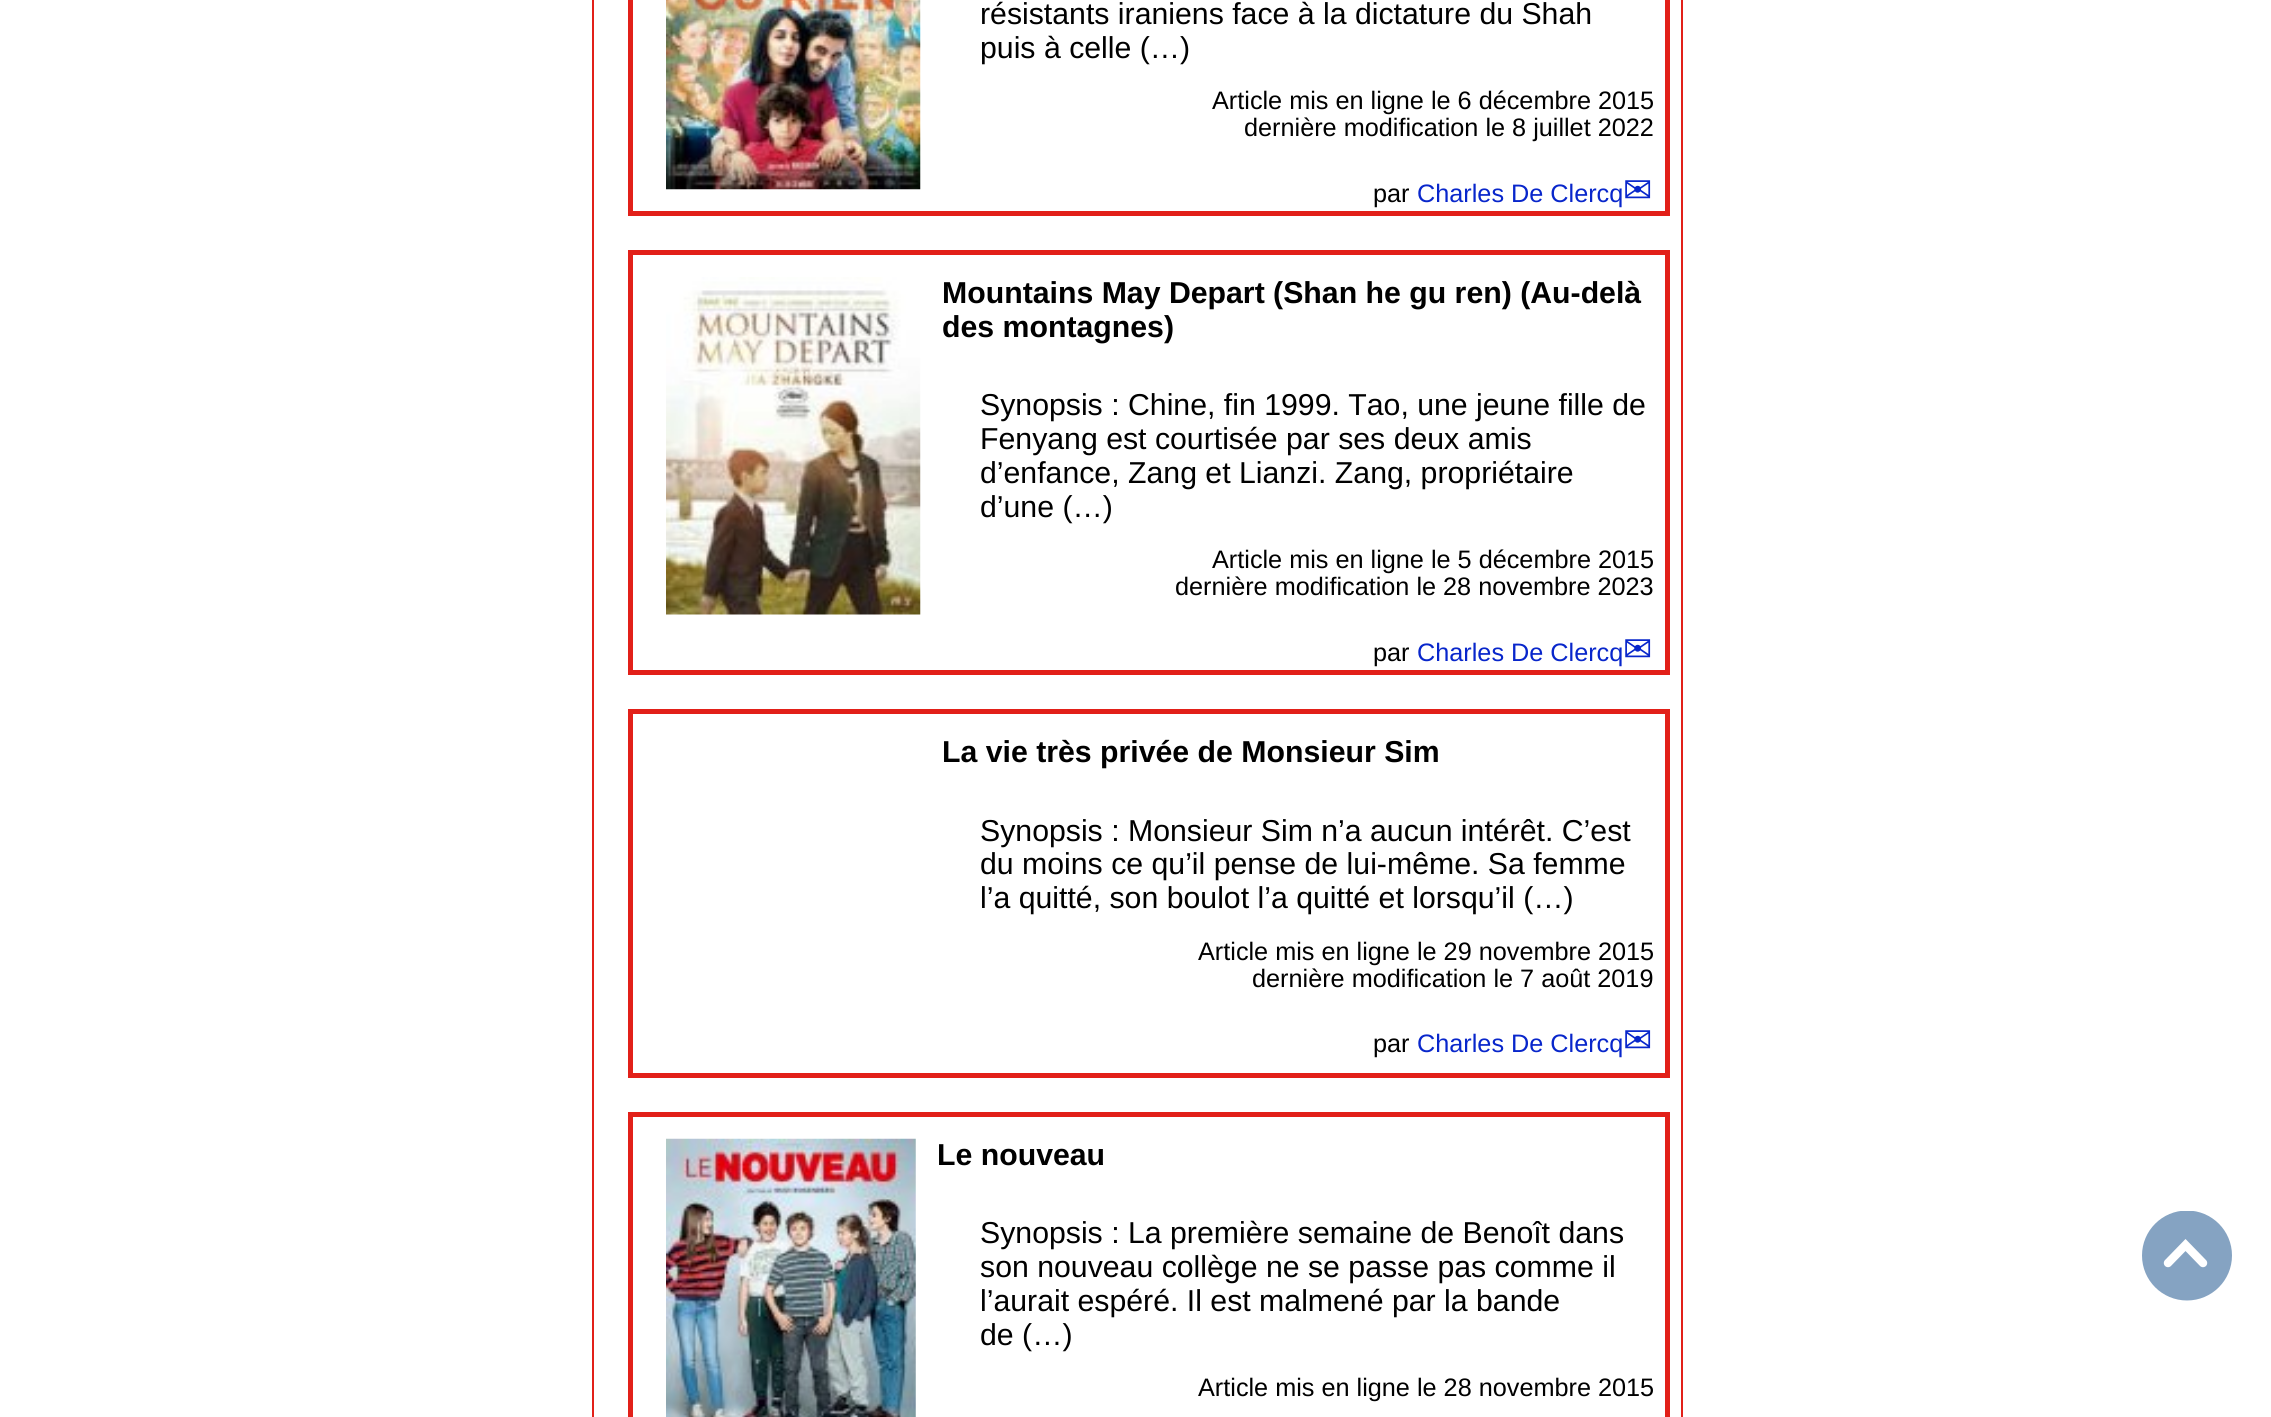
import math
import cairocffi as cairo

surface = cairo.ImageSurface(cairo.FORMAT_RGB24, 2271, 1417)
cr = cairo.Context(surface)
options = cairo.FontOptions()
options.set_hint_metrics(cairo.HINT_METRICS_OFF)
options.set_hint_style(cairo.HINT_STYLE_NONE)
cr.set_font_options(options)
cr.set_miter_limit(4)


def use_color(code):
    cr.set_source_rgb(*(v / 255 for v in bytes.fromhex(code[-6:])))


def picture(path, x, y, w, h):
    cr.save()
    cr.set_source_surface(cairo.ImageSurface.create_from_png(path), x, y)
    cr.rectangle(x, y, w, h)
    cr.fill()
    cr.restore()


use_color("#ffffff")
cr.paint()
cr.rectangle(593, -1, 1089, 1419)
use_color("#e22019")
cr.stroke()
cr.rectangle(630.5, -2.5, 1037, 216)
cr.set_line_width(5)
cr.stroke()
picture("img1.png", 666, 0, 255, 190)
cr.select_font_face("Liberation Sans")
cr.set_font_size(30.25)
use_color("#000000")
cr.move_to(980, 24)
cr.show_text("résistants iraniens face à la dictature du Shah")
cr.move_to(980, 58)
cr.show_text("puis à celle (…)")
cr.set_font_size(25.25)
cr.move_to(1212, 109)
cr.show_text("Article mis en ligne le 6 décembre 2015")
cr.move_to(1244, 136)
cr.show_text("dernière modification le 8 juillet 2022")
cr.move_to(1373, 202)
cr.show_text("par")
use_color("#0826cb")
cr.move_to(1417, 202)
cr.show_text("Charles De Clercq")
cr.select_font_face("DejaVu Sans")
cr.set_font_size(35)
cr.move_to(1623, 202)
cr.show_text("✉")
cr.rectangle(630.5, 252.5, 1037, 420)
use_color("#e22019")
cr.stroke()
picture("img2.png", 666, 277, 255, 338)
cr.select_font_face("Liberation Sans", cairo.FONT_SLANT_NORMAL, cairo.FONT_WEIGHT_BOLD)
cr.set_font_size(30.25)
use_color("#000000")
cr.move_to(942, 303)
cr.show_text("Mountains May Depart (Shan he gu ren) (Au-delà")
cr.move_to(942, 337)
cr.show_text("des montagnes)")
cr.select_font_face("Liberation Sans")
cr.move_to(980, 415)
cr.show_text("Synopsis : Chine, fin 1999. Tao, une jeune fille de")
cr.move_to(980, 449)
cr.show_text("Fenyang est courtisée par ses deux amis")
cr.move_to(980, 483)
cr.show_text("d’enfance, Zang et Lianzi. Zang, propriétaire")
cr.move_to(980, 517)
cr.show_text("d’une (…)")
cr.set_font_size(25.25)
cr.move_to(1212, 568)
cr.show_text("Article mis en ligne le 5 décembre 2015")
cr.move_to(1175, 595)
cr.show_text("dernière modification le 28 novembre 2023")
cr.move_to(1373, 661)
cr.show_text("par")
use_color("#0826cb")
cr.move_to(1417, 661)
cr.show_text("Charles De Clercq")
cr.select_font_face("DejaVu Sans")
cr.set_font_size(35)
cr.move_to(1623, 661)
cr.show_text("✉")
cr.rectangle(630.5, 711.5, 1037, 364)
use_color("#e22019")
cr.stroke()
cr.select_font_face("Liberation Sans", cairo.FONT_SLANT_NORMAL, cairo.FONT_WEIGHT_BOLD)
cr.set_font_size(30.25)
use_color("#000000")
cr.move_to(942, 762)
cr.show_text("La vie très privée de Monsieur Sim")
cr.select_font_face("Liberation Sans")
cr.move_to(980, 841)
cr.show_text("Synopsis : Monsieur Sim n’a aucun intérêt. C’est")
cr.move_to(980, 874)
cr.show_text("du moins ce qu’il pense de lui-même. Sa femme")
cr.move_to(980, 908)
cr.show_text("l’a quitté, son boulot l’a quitté et lorsqu’il (…)")
cr.set_font_size(25.25)
cr.move_to(1198, 960)
cr.show_text("Article mis en ligne le 29 novembre 2015")
cr.move_to(1252, 987)
cr.show_text("dernière modification le 7 août 2019")
cr.move_to(1373, 1052)
cr.show_text("par")
use_color("#0826cb")
cr.move_to(1417, 1052)
cr.show_text("Charles De Clercq")
cr.select_font_face("DejaVu Sans")
cr.set_font_size(35)
cr.move_to(1623, 1052)
cr.show_text("✉")
cr.rectangle(630.5, 1114.5, 1037, 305)
use_color("#e22019")
cr.stroke()
picture("img3.png", 666, 1138, 250, 279)
cr.select_font_face("Liberation Sans", cairo.FONT_SLANT_NORMAL, cairo.FONT_WEIGHT_BOLD)
cr.set_font_size(30.25)
use_color("#000000")
cr.move_to(937, 1165)
cr.show_text("Le nouveau")
cr.select_font_face("Liberation Sans")
cr.move_to(980, 1243)
cr.show_text("Synopsis : La première semaine de Benoît dans")
cr.move_to(980, 1277)
cr.show_text("son nouveau collège ne se passe pas comme il")
cr.move_to(980, 1311)
cr.show_text("l’aurait espéré. Il est malmené par la bande")
cr.move_to(980, 1345)
cr.show_text("de (…)")
cr.set_font_size(25.25)
cr.move_to(1198, 1396)
cr.show_text("Article mis en ligne le 28 novembre 2015")
cr.save()
cr.rectangle(2142, 1211, 90, 90)
cr.clip()
use_color("#85a3c2")
cr.arc(2187, 1255.5, 45, 0, 2 * math.pi)
cr.fill()
cr.restore()
cr.new_path()
cr.move_to(2168, 1263)
cr.line_to(2185.5, 1245)
cr.line_to(2203, 1263)
use_color("#ffffff")
cr.set_line_width(8.4)
cr.set_line_cap(cairo.LINE_CAP_ROUND)
cr.stroke()
surface.write_to_png("result.png")
